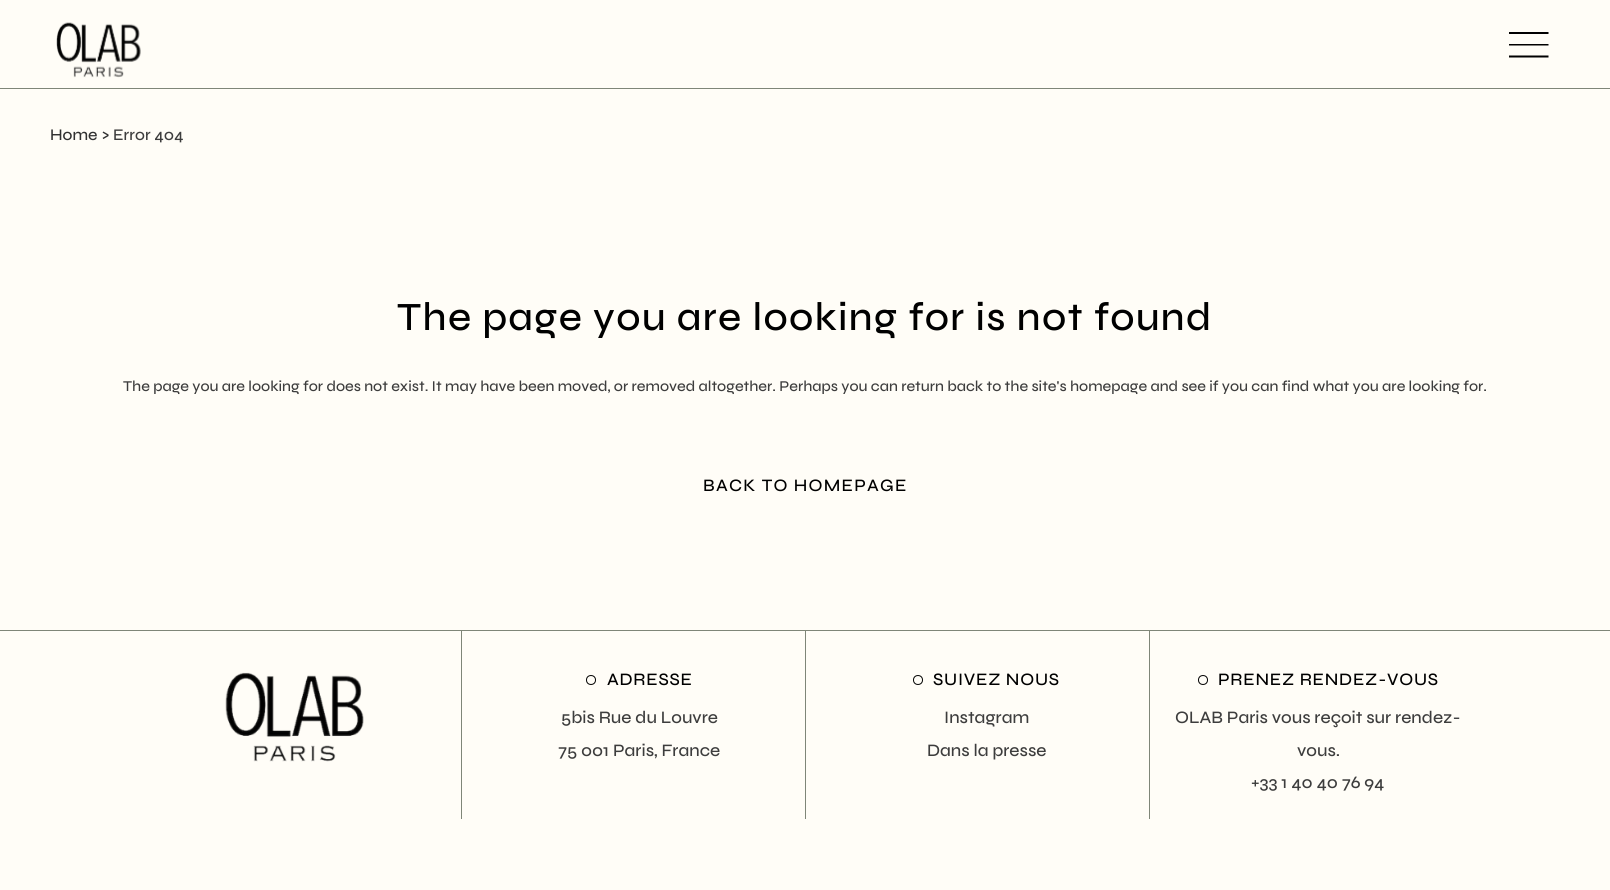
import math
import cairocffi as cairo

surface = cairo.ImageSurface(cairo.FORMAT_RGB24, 1610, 890)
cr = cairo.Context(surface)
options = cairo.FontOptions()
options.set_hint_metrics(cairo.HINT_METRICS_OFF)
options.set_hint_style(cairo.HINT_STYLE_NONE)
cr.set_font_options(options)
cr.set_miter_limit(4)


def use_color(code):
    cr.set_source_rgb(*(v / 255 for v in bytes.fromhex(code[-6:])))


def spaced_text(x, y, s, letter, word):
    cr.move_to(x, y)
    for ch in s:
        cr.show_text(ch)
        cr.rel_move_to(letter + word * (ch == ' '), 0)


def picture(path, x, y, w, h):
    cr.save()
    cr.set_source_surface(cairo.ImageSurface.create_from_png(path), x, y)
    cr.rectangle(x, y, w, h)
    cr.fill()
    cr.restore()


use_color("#fffdf7")
cr.paint()
use_color("#7f8678")
cr.rectangle(0, 88, 1610, 1)
cr.fill()
picture("img1.png", 56, 22, 85, 56)
use_color("#000000")
cr.new_path()
cr.move_to(1509, 32)
cr.line_to(1509, 34)
cr.line_to(1548.5, 34)
cr.line_to(1548.5, 32)
cr.close_path()
cr.move_to(1509, 44)
cr.line_to(1509, 45.5)
cr.line_to(1548.5, 45.5)
cr.line_to(1548.5, 44)
cr.close_path()
cr.move_to(1509, 55.5)
cr.line_to(1509, 57.5)
cr.line_to(1548.5, 57.5)
cr.line_to(1548.5, 55.5)
cr.close_path()
cr.fill()
cr.select_font_face("Syne Medium")
cr.set_font_size(16.25)
use_color("#303030")
cr.move_to(50, 140)
cr.show_text("Home >")
use_color("#3d3d3d")
cr.move_to(113, 140)
cr.show_text("Error 404")
cr.set_font_size(40)
use_color("#000000")
spaced_text(397, 330, "The page you are looking for is not found", 1.25, 0)
cr.set_font_size(15)
use_color("#3d3d3d")
cr.move_to(123, 391)
cr.show_text("The page you are looking for does not exist. It may have been moved, or removed altogether. Perhaps you can return back to the site's homepage and see if you can find what you are looking for.")
cr.set_font_size(17.5)
use_color("#000000")
spaced_text(703, 491, "BACK TO HOMEPAGE", 1.25, 0)
use_color("#7f8678")
cr.rectangle(0, 630, 1610, 1)
cr.fill()
picture("img2.png", 225, 672, 139, 90)
cr.rectangle(461, 631, 1, 188)
cr.fill()
cr.arc(591, 680, 4.5, 0, 2 * math.pi)
use_color("#000000")
cr.set_line_width(1)
cr.stroke()
spaced_text(607, 685, "ADRESSE", 0.75, 0)
use_color("#3d3d3d")
cr.move_to(561, 723)
cr.show_text("5bis Rue du Louvre")
cr.move_to(558, 756)
cr.show_text("75 001 Paris, France")
use_color("#7f8678")
cr.rectangle(805, 631, 1, 188)
cr.fill()
cr.arc(918, 680, 4.5, 0, 2 * math.pi)
use_color("#000000")
cr.stroke()
spaced_text(933, 685, "SUIVEZ NOUS", 0.75, 0)
use_color("#3d3d3d")
cr.move_to(944, 723)
cr.show_text("Instagram")
cr.move_to(927, 756)
cr.show_text("Dans la presse")
use_color("#7f8678")
cr.rectangle(1149, 631, 1, 188)
cr.fill()
cr.arc(1203, 680, 4.5, 0, 2 * math.pi)
use_color("#000000")
cr.stroke()
spaced_text(1218, 685, "PRENEZ RENDEZ-VOUS", 0.75, 0)
use_color("#3d3d3d")
cr.move_to(1175, 723)
cr.show_text("OLAB Paris vous reçoit sur rendez-")
cr.move_to(1297, 756)
cr.show_text("vous.")
cr.move_to(1251, 788)
cr.show_text("+33 1 40 40 76 94")
surface.write_to_png("result.png")
